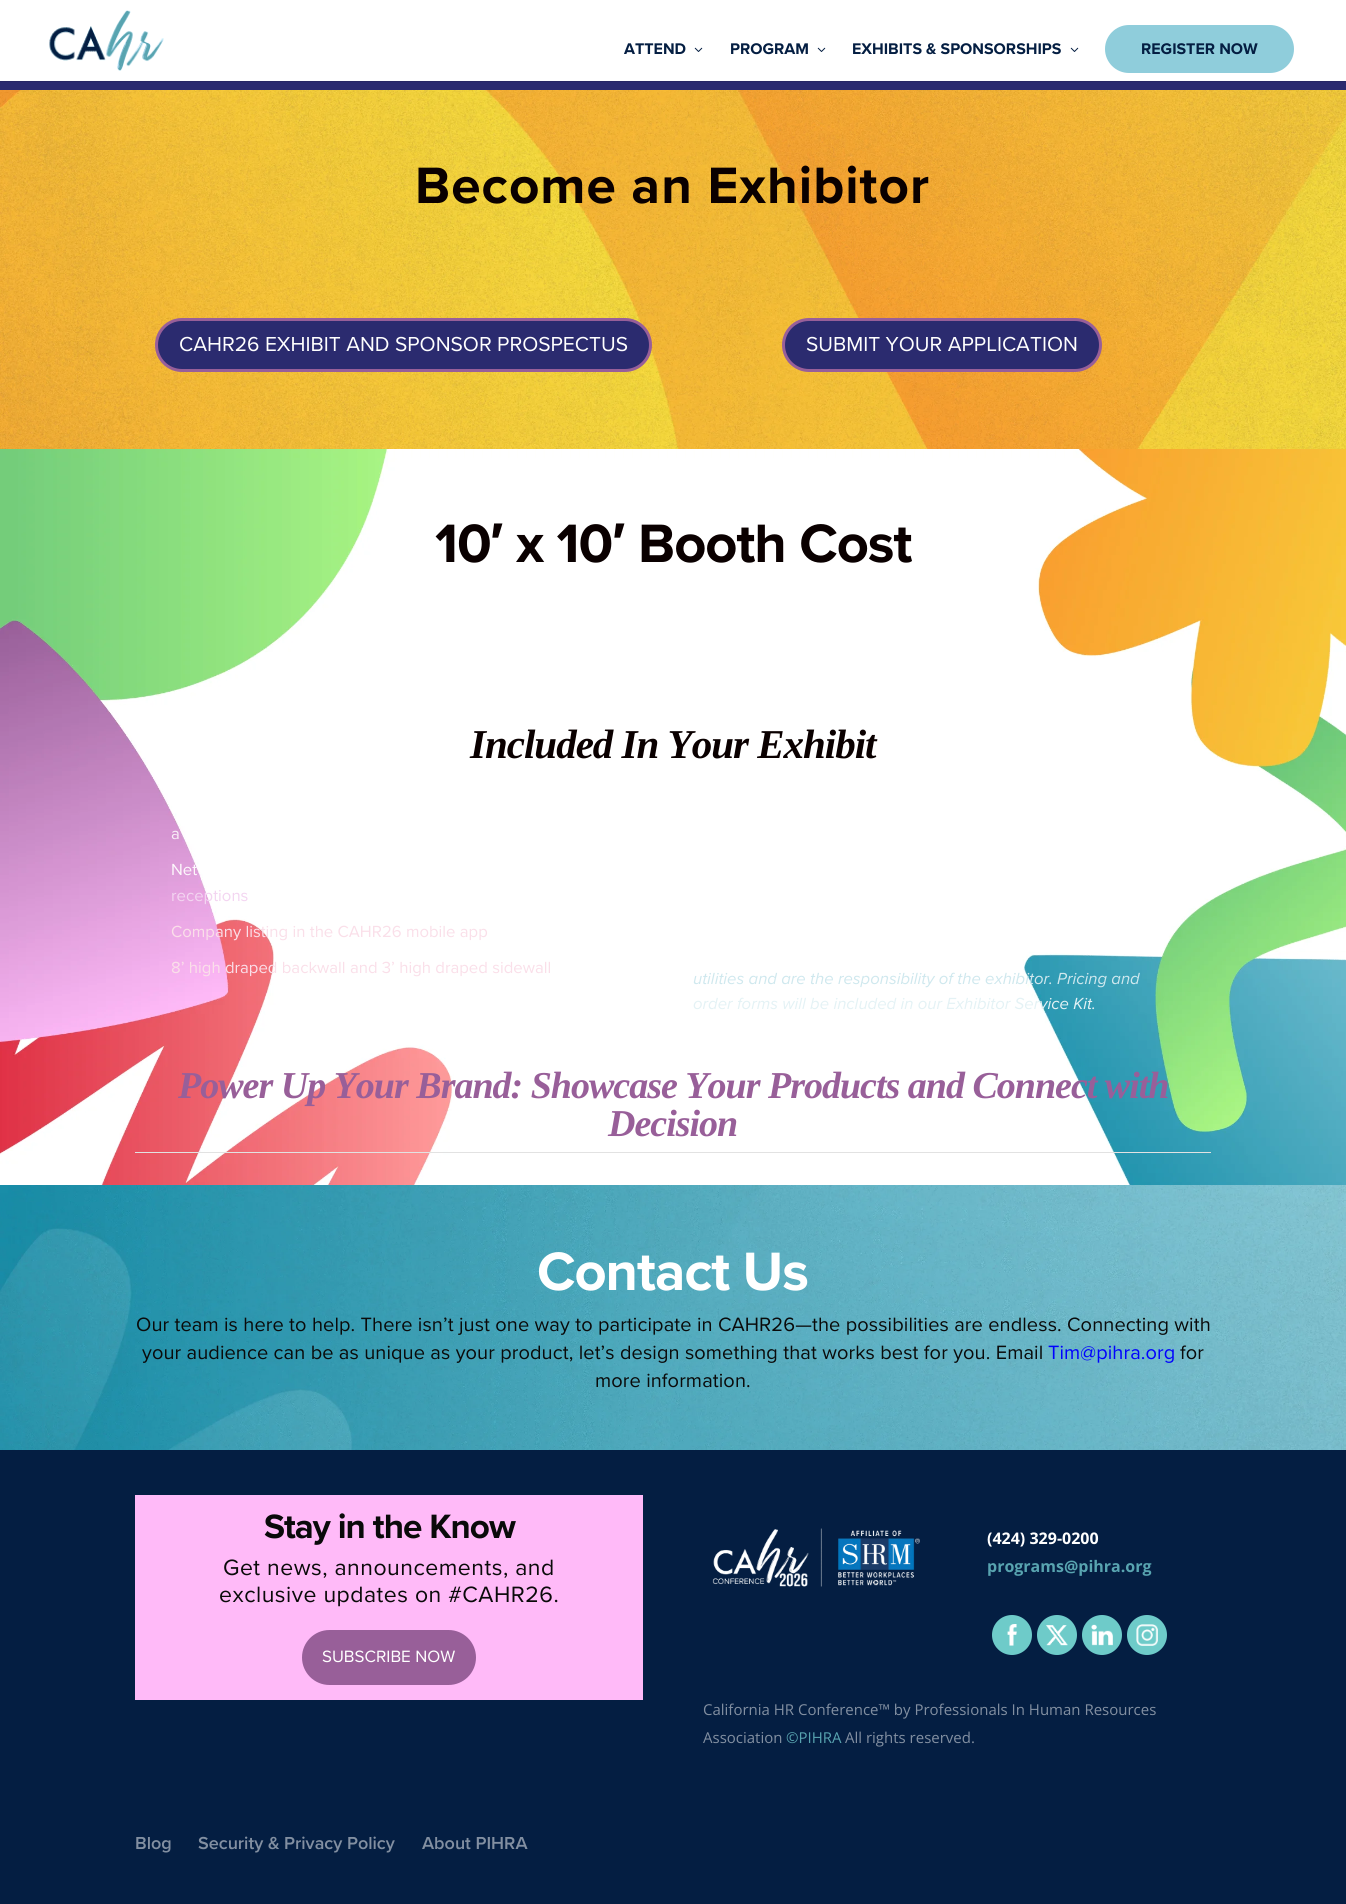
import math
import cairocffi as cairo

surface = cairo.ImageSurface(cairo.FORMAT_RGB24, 1346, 1904)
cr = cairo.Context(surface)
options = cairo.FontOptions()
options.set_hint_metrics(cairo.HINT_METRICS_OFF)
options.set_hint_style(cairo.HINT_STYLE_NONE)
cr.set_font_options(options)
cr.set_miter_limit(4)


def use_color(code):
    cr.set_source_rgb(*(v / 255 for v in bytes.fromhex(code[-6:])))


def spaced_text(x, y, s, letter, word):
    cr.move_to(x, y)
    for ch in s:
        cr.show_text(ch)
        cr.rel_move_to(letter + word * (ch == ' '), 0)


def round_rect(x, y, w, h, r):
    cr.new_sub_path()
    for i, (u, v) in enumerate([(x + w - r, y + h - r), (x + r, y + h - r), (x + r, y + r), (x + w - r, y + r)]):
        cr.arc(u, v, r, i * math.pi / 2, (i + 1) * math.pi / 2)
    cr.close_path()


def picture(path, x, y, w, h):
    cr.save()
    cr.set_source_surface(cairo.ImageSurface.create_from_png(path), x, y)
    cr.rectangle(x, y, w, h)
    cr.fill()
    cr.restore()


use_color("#041e42")
cr.paint()
use_color("#272764")
cr.rectangle(0, 81, 1346, 1)
cr.fill()
use_color("#ffffff")
cr.rectangle(0, 0, 1346, 81)
cr.fill()
picture("img1.png", 49, 10, 115, 61)
cr.select_font_face("Proxima Nova", cairo.FONT_SLANT_NORMAL, cairo.FONT_WEIGHT_BOLD)
cr.set_font_size(16)
use_color("#041e42")
cr.move_to(624, 54)
cr.show_text("ATTEND")
picture("img2.png", 694, 47, 9, 5)
cr.move_to(730, 54)
cr.show_text("PROGRAM")
picture("img2.png", 817, 47, 9, 5)
cr.move_to(852, 54)
cr.show_text("EXHIBITS & SPONSORSHIPS")
picture("img2.png", 1070, 47, 9, 5)
use_color("#8fcddb")
round_rect(1105, 25, 189, 48, 24)
cr.fill()
use_color("#041e42")
cr.move_to(1141, 54)
cr.show_text("REGISTER NOW")
picture("img3.png", 0, 90, 1346, 359)
use_color("#2b2b6f")
cr.rectangle(0, 82, 1346, 8)
cr.fill()
cr.set_font_size(53)
use_color("#0a0000")
spaced_text(415, 203, "Become an Exhibitor", 1, 0)
use_color("#2b2b6f")
round_rect(156.5, 319.5, 494, 51, 25.5)
cr.fill_preserve()
use_color("#985f99")
cr.set_line_width(3)
cr.stroke()
cr.select_font_face("Proxima Nova")
cr.set_font_size(21)
use_color("#ffffff")
cr.move_to(179, 351)
cr.show_text("CAHR26 EXHIBIT AND SPONSOR PROSPECTUS")
use_color("#2b2b6f")
round_rect(783.5, 319.5, 317, 51, 25.5)
cr.fill_preserve()
use_color("#985f99")
cr.stroke()
use_color("#ffffff")
cr.move_to(806, 351)
cr.show_text("SUBMIT YOUR APPLICATION")
picture("img4.png", 0, 449, 1346, 736)
cr.select_font_face("Proxima Nova", cairo.FONT_SLANT_NORMAL, cairo.FONT_WEIGHT_BOLD)
cr.set_font_size(56)
use_color("#0a0000")
spaced_text(435, 562, "10", -1, 0)
cr.select_font_face("Liberation Sans", cairo.FONT_SLANT_NORMAL, cairo.FONT_WEIGHT_BOLD)
spaced_text(490, 562, "′", -1, 0)
cr.select_font_face("Proxima Nova", cairo.FONT_SLANT_NORMAL, cairo.FONT_WEIGHT_BOLD)
spaced_text(516, 562, "x 10", -1, 0)
cr.select_font_face("Liberation Sans", cairo.FONT_SLANT_NORMAL, cairo.FONT_WEIGHT_BOLD)
spaced_text(612, 562, "′", -1, 0)
cr.select_font_face("Proxima Nova", cairo.FONT_SLANT_NORMAL, cairo.FONT_WEIGHT_BOLD)
spaced_text(638, 562, "Booth Cost", -1, 0)
cr.select_font_face("Liberation Serif", cairo.FONT_SLANT_ITALIC, cairo.FONT_WEIGHT_BOLD)
cr.set_font_size(41)
spaced_text(470, 758, "Included In Your Exhibit", -1, 0)
cr.select_font_face("Proxima Nova")
cr.set_font_size(16.7)
use_color("#f9eff8")
cr.move_to(171, 839)
cr.show_text("a")
use_color("#fdf8fc")
cr.move_to(171, 875)
cr.show_text("Net")
use_color("#f3d5f1")
cr.move_to(171, 901)
cr.show_text("receptions")
use_color("#fadfe9")
cr.move_to(171, 937)
cr.show_text("Company listing in the CAHR26 mobile app")
cr.move_to(171, 973)
cr.show_text("8’ high draped backwall and 3’ high draped sidewall")
cr.select_font_face("Proxima Nova", cairo.FONT_SLANT_ITALIC)
use_color("#cfe8ee")
cr.move_to(693, 984)
cr.show_text("utilities and are the responsibility of the exhibitor. Pricing and")
use_color("#e4f2f5")
cr.move_to(693, 1009)
cr.show_text("order forms will be included in our Exhibitor Service Kit.")
cr.select_font_face("Liberation Serif", cairo.FONT_SLANT_ITALIC, cairo.FONT_WEIGHT_BOLD)
cr.set_font_size(38)
use_color("#985f99")
spaced_text(178, 1098, "Power Up Your Brand: Showcase Your Products and Connect with", -1, 0)
spaced_text(608, 1136, "Decision", -1, 0)
use_color("#e2e2e2")
cr.rectangle(135, 1152, 1076, 1)
cr.fill()
picture("img5.png", 0, 1185, 1346, 265)
cr.select_font_face("Proxima Nova", cairo.FONT_SLANT_NORMAL, cairo.FONT_WEIGHT_BOLD)
cr.set_font_size(56)
use_color("#ffffff")
spaced_text(537, 1290, "Contact Us", -1, 0)
cr.select_font_face("Proxima Nova")
cr.set_font_size(20)
use_color("#0a0a0a")
spaced_text(136, 1331, "Our team is here to help. There isn’t just one way to participate in CAHR26—the possibilities are endless. Connecting with", 0.1, 0)
spaced_text(142, 1359, "your audience can be as unique as your product, let’s design something that works best for you. Email", 0.1, 0)
use_color("#0000ff")
spaced_text(1048, 1359, "Tim@pihra.org", 0.1, 0)
use_color("#0a0a0a")
spaced_text(1180, 1359, "for", 0.1, 0)
spaced_text(595, 1387, "more information.", 0.1, 0)
use_color("#ffbaf8")
cr.rectangle(135, 1495, 508, 205)
cr.fill()
cr.select_font_face("Proxima Nova", cairo.FONT_SLANT_NORMAL, cairo.FONT_WEIGHT_BOLD)
cr.set_font_size(35)
use_color("#0a0a0a")
spaced_text(264, 1538, "Stay in the Know", -1, 0)
cr.select_font_face("Proxima Nova")
cr.set_font_size(23)
spaced_text(223, 1575, "Get news, announcements, and", 0.5, 0)
spaced_text(219, 1602, "exclusive updates on #CAHR26.", 0.5, 0)
use_color("#985f99")
round_rect(302, 1630, 174, 55, 27.5)
cr.fill()
cr.set_font_size(17)
use_color("#ffffff")
cr.move_to(322, 1662)
cr.show_text("SUBSCRIBE NOW")
picture("img6.png", 712, 1528, 208, 59)
cr.select_font_face("Open Sans", cairo.FONT_SLANT_NORMAL, cairo.FONT_WEIGHT_BOLD)
cr.set_font_size(16)
cr.move_to(987, 1544)
cr.show_text("(424) 329-0200")
use_color("#58a4b0")
cr.move_to(987, 1572)
cr.show_text("programs@pihra.org")
use_color("#6ecbc9")
cr.new_path()
cr.arc(1012, 1635, 20, 0, 2 * math.pi)
cr.fill()
picture("img7.png", 1007, 1624, 10, 22)
cr.arc(1057, 1635, 20, 0, 2 * math.pi)
cr.fill()
picture("img8.png", 1046, 1625, 22, 21)
cr.arc(1102, 1635, 20, 0, 2 * math.pi)
cr.fill()
picture("img9.png", 1091, 1624, 22, 22)
cr.arc(1147, 1635, 20, 0, 2 * math.pi)
cr.fill()
picture("img10.png", 1136, 1624, 22, 22)
cr.select_font_face("Open Sans")
cr.set_font_size(15)
use_color("#828fa1")
cr.move_to(703, 1715)
cr.show_text("California HR Conference™ by Professionals In Human Resources")
cr.move_to(703, 1743)
cr.show_text("Association")
use_color("#58a4b0")
cr.move_to(786, 1743)
cr.show_text("©PIHRA")
use_color("#828fa1")
cr.move_to(845, 1743)
cr.show_text("All rights reserved.")
cr.select_font_face("Proxima Nova SemiBold")
cr.set_font_size(18)
cr.move_to(135, 1849)
cr.show_text("Blog")
cr.move_to(198, 1849)
cr.show_text("Security & Privacy Policy")
cr.move_to(422, 1849)
cr.show_text("About PIHRA")
surface.write_to_png("result.png")
